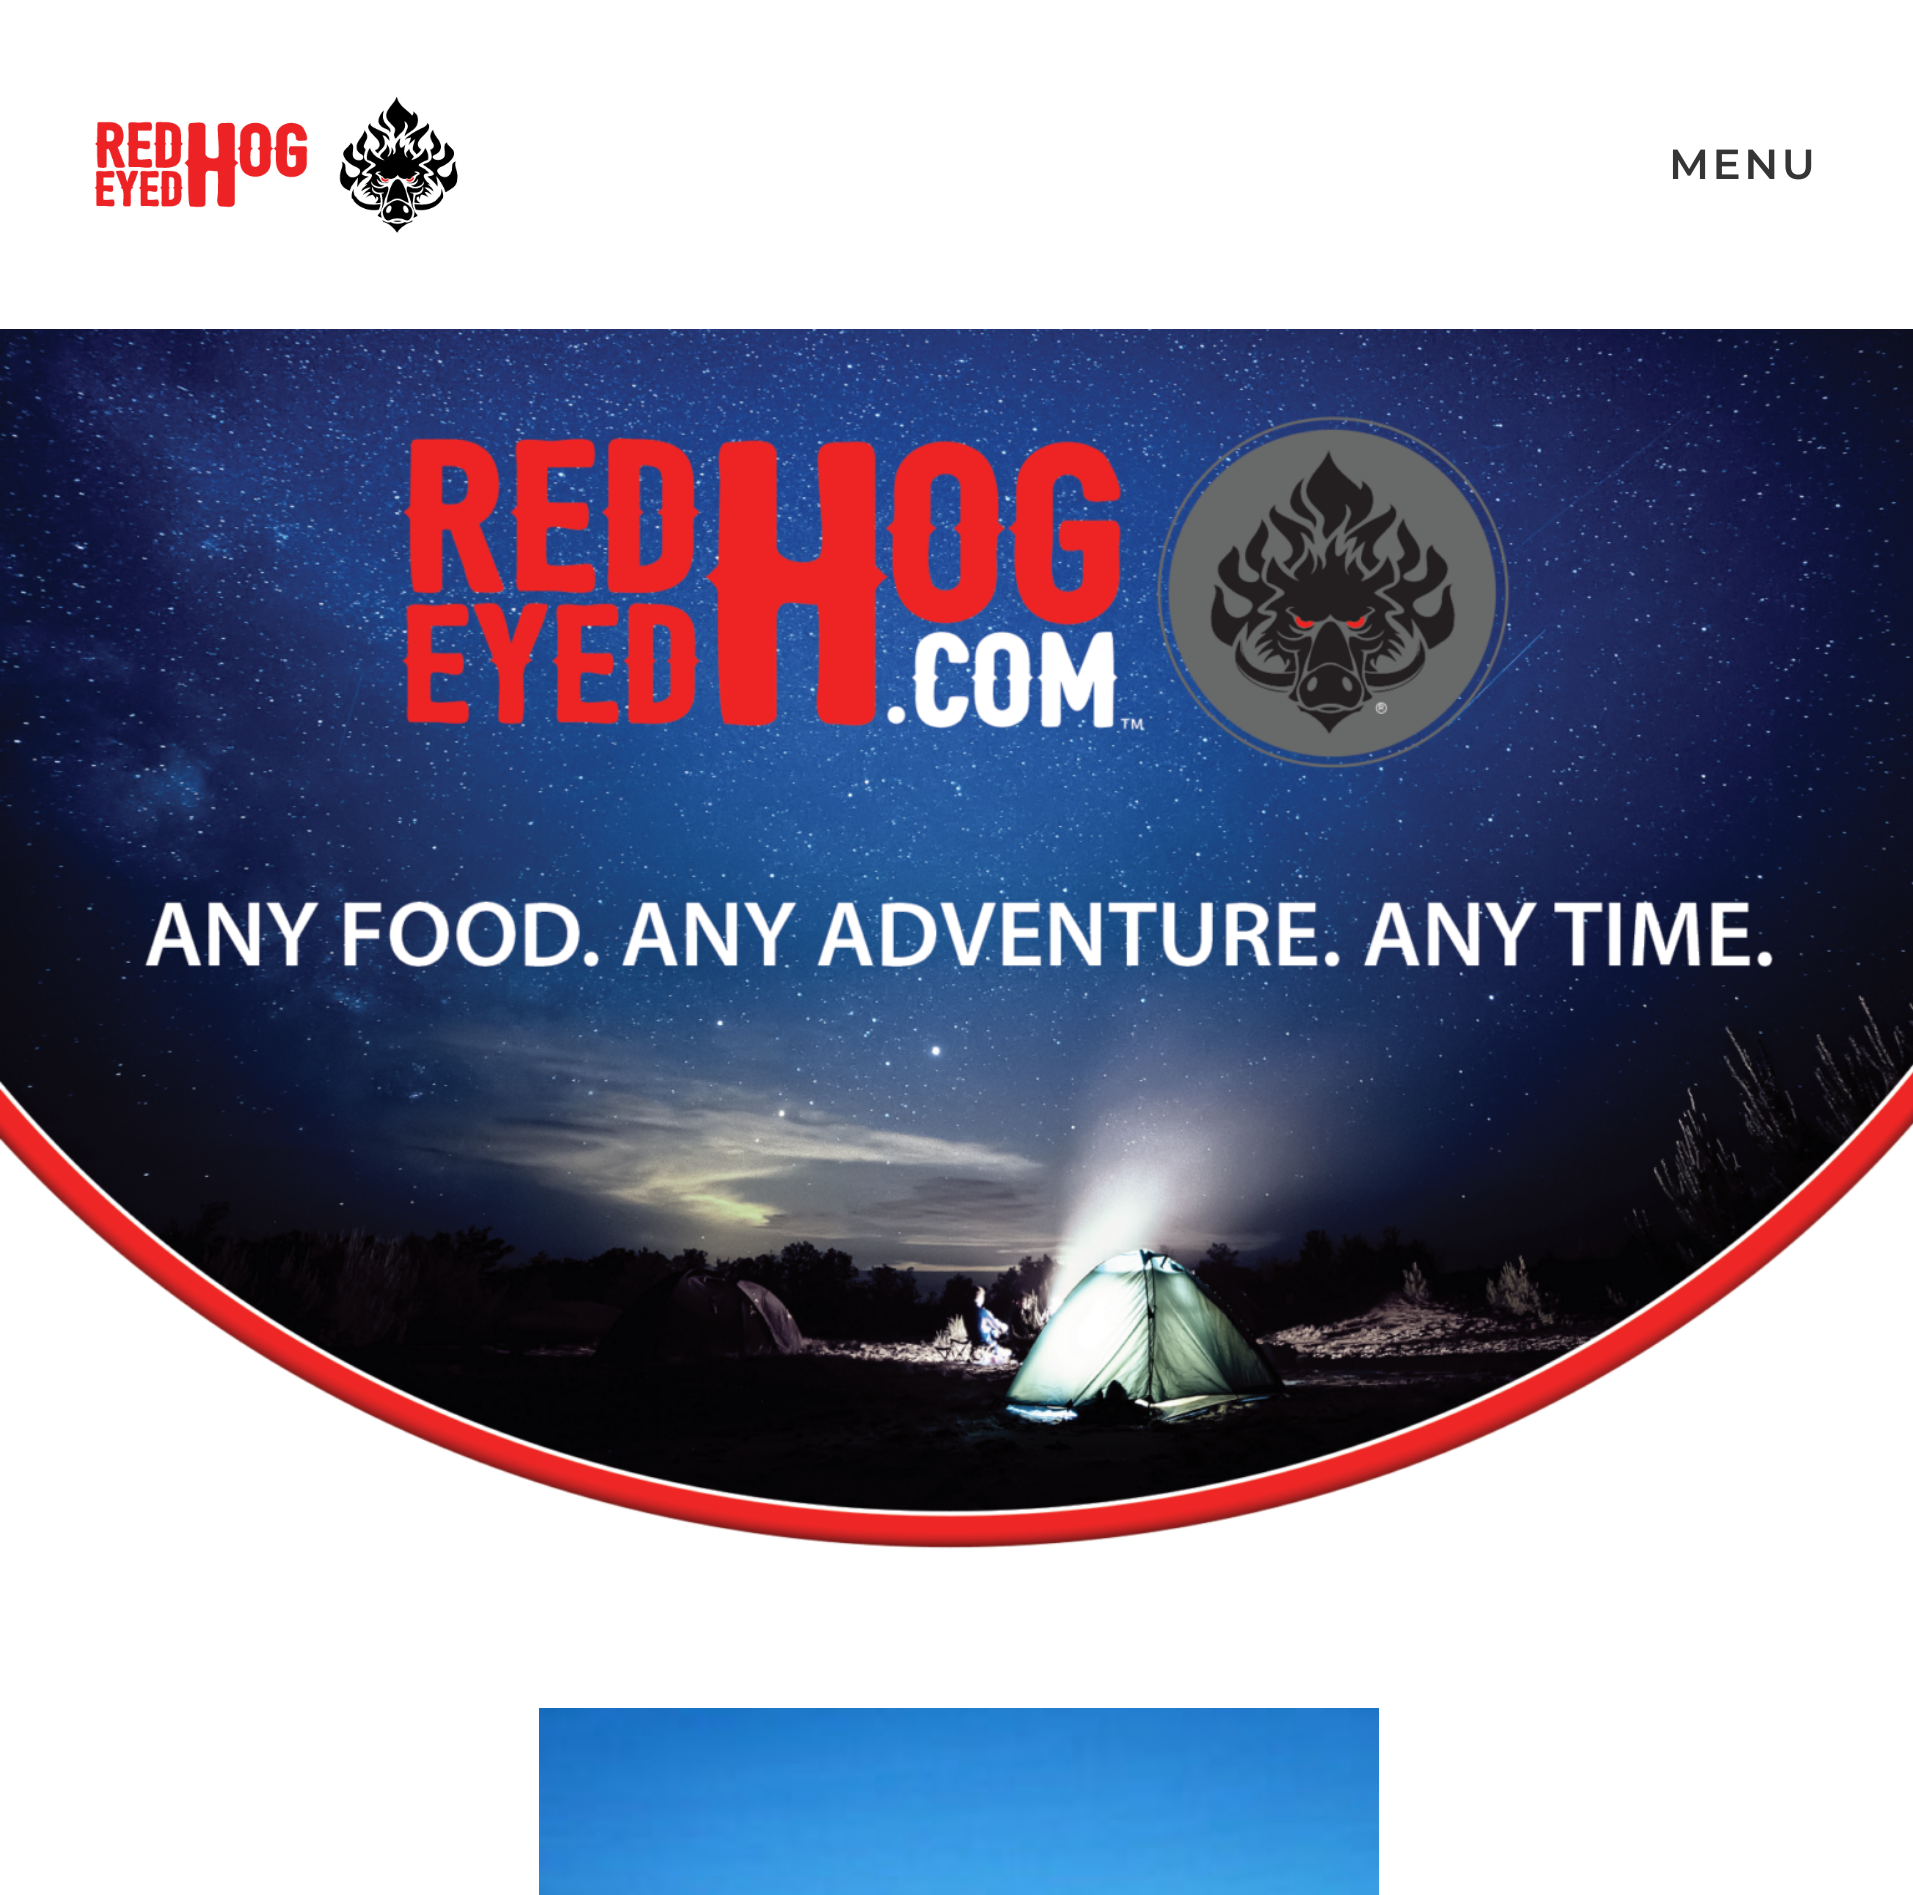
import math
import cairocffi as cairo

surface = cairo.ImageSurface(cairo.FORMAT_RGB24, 1913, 1895)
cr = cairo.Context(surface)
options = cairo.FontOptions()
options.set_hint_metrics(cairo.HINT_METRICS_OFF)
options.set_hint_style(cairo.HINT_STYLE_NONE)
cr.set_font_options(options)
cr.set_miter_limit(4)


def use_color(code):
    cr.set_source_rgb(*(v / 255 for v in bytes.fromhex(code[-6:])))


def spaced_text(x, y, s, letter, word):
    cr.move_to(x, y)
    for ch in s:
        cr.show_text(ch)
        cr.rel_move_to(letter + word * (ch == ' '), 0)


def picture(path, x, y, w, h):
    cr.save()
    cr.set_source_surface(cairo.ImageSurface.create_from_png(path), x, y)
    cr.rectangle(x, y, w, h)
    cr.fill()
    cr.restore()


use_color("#ffffff")
cr.paint()
picture("img1.png", 94, 96, 364, 137)
cr.select_font_face("Montserrat Thin")
cr.set_font_size(42)
use_color("#353535")
spaced_text(1669, 179, "MENU", 3.5, 0)
picture("img2.png", 0, 329, 1913, 1220)
picture("img3.png", 539, 1708, 840, 187)
surface.write_to_png("result.png")
